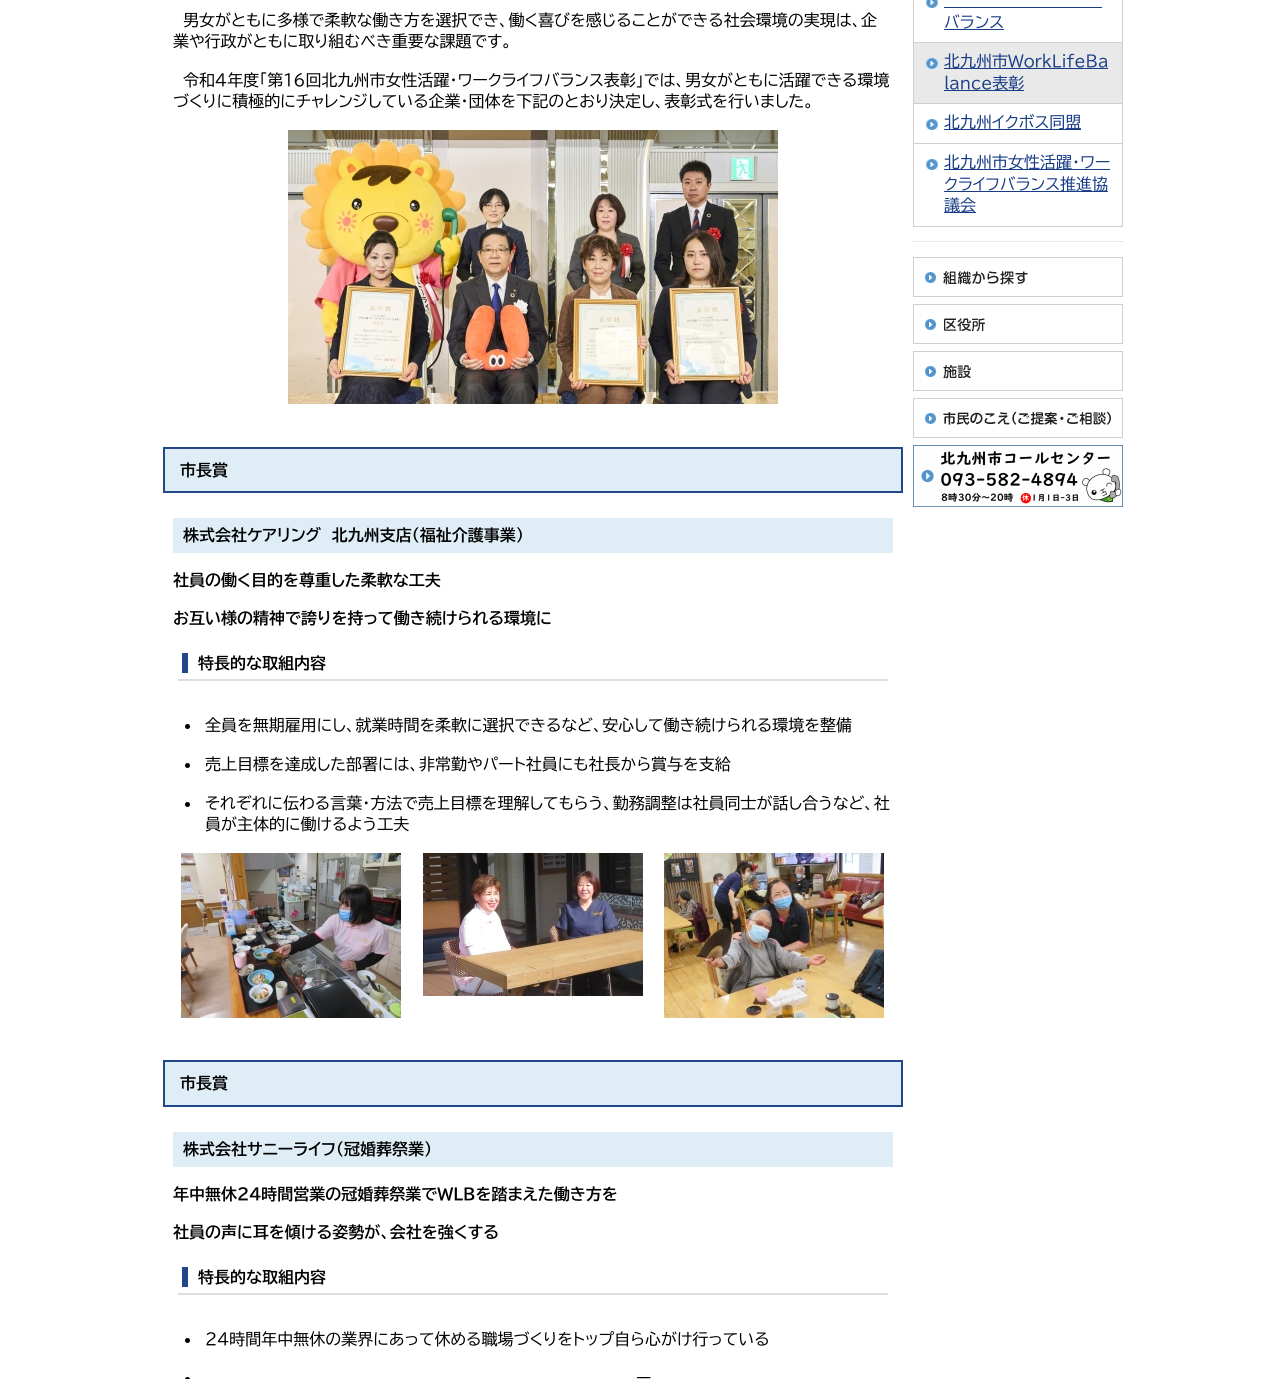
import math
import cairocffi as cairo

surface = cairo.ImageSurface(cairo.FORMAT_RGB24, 1285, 1379)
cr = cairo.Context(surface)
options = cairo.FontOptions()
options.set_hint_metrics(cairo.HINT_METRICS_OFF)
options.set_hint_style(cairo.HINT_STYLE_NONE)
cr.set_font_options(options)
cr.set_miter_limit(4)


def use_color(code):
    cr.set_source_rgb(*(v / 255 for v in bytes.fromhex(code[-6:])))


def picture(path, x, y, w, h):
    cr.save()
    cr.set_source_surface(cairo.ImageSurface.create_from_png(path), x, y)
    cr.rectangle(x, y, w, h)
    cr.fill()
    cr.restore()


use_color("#ffffff")
cr.paint()
cr.select_font_face("BIZ UDPGothic")
cr.set_font_size(16)
use_color("#000000")
cr.move_to(183, 26)
cr.show_text("男女がともに多様で柔軟な働き方を選択でき、働く喜びを感じることができる社会環境の実現は、企")
cr.move_to(173, 47)
cr.show_text("業や行政がともに取り組むべき重要な課題です。")
cr.move_to(183, 86)
cr.show_text("令和4年度「第16回北九州市女性活躍・ワークライフバランス表彰」では、男女がともに活躍できる環境")
cr.move_to(173, 107)
cr.show_text("づくりに積極的にチャレンジしている企業・団体を下記のとおり決定し、表彰式を行いました。")
picture("img1.png", 288, 130, 490, 274)
use_color("#dfeef6")
cr.rectangle(164, 448, 738, 44)
cr.fill_preserve()
use_color("#23478b")
cr.stroke()
cr.select_font_face("BIZ UDPGothic", cairo.FONT_SLANT_NORMAL, cairo.FONT_WEIGHT_BOLD)
use_color("#000000")
cr.move_to(180, 476)
cr.show_text("市長賞")
use_color("#dfeef6")
cr.rectangle(173, 518, 720, 35)
cr.fill()
use_color("#000000")
cr.move_to(183, 541)
cr.show_text("株式会社ケアリング　北九州支店（福祉介護事業）")
cr.move_to(173, 586)
cr.show_text("社員の働く目的を尊重した柔軟な工夫")
cr.move_to(173, 624)
cr.show_text("お互い様の精神で誇りを持って働き続けられる環境に")
use_color("#dddddd")
cr.rectangle(178, 679, 710, 2)
cr.fill()
use_color("#21468d")
cr.rectangle(182, 653, 6, 20)
cr.fill()
use_color("#000000")
cr.move_to(198, 669)
cr.show_text("特長的な取組内容")
cr.new_path()
cr.arc(187.5, 726.5, 2.5, 0, 2 * math.pi)
cr.fill()
cr.select_font_face("BIZ UDPGothic")
cr.move_to(205, 731)
cr.show_text("全員を無期雇用にし、就業時間を柔軟に選択できるなど、安心して働き続けられる環境を整備")
cr.new_path()
cr.arc(187.5, 765.5, 2.5, 0, 2 * math.pi)
cr.fill()
cr.move_to(205, 770)
cr.show_text("売上目標を達成した部署には、非常勤やパート社員にも社長から賞与を支給")
cr.new_path()
cr.arc(187.5, 804.5, 2.5, 0, 2 * math.pi)
cr.fill()
cr.move_to(205, 809)
cr.show_text("それぞれに伝わる言葉・方法で売上目標を理解してもらう、勤務調整は社員同士が話し合うなど、社")
cr.move_to(205, 830)
cr.show_text("員が主体的に働けるよう工夫")
picture("img2.png", 181, 853, 220, 165)
picture("img3.png", 423, 853, 220, 143)
picture("img4.png", 664, 853, 220, 165)
use_color("#dfeef6")
cr.rectangle(164, 1061, 738, 45)
cr.fill_preserve()
use_color("#23478b")
cr.stroke()
cr.select_font_face("BIZ UDPGothic", cairo.FONT_SLANT_NORMAL, cairo.FONT_WEIGHT_BOLD)
use_color("#000000")
cr.move_to(180, 1089)
cr.show_text("市長賞")
use_color("#dfeef6")
cr.rectangle(173, 1132, 720, 35)
cr.fill()
use_color("#000000")
cr.move_to(183, 1155)
cr.show_text("株式会社サニーライフ（冠婚葬祭業）")
cr.move_to(173, 1200)
cr.show_text("年中無休24時間営業の冠婚葬祭業でWLBを踏まえた働き方を")
cr.move_to(173, 1238)
cr.show_text("社員の声に耳を傾ける姿勢が、会社を強くする")
use_color("#dddddd")
cr.rectangle(178, 1293, 710, 2)
cr.fill()
use_color("#21468d")
cr.rectangle(182, 1267, 6, 20)
cr.fill()
use_color("#000000")
cr.move_to(198, 1283)
cr.show_text("特長的な取組内容")
cr.new_path()
cr.arc(187.5, 1340.5, 2.5, 0, 2 * math.pi)
cr.fill()
cr.select_font_face("BIZ UDPGothic")
cr.move_to(205, 1345)
cr.show_text("24時間年中無休の業界にあって休める職場づくりをトップ自ら心がけ行っている")
cr.new_path()
cr.arc(187.5, 1379.5, 2.5, 0, 2 * math.pi)
cr.fill()
cr.move_to(636, 1384)
cr.show_text("ー")
use_color("#cecece")
cr.rectangle(1122, 0, 1, 227)
cr.fill()
cr.rectangle(913, 42, 209, 1)
cr.fill()
cr.rectangle(913, 0, 1, 43)
cr.fill()
picture("img5.png", 926, 0, 12, 8)
use_color("#183d86")
cr.move_to(944, 28)
cr.show_text("バランス")
cr.rectangle(944, 7, 158, 1)
cr.fill()
cr.rectangle(944, 29, 60, 1)
cr.fill()
use_color("#e9e9e9")
cr.rectangle(914, 43, 208, 60)
cr.fill()
use_color("#cecece")
cr.rectangle(913, 103, 209, 1)
cr.fill()
cr.rectangle(913, 43, 1, 61)
cr.fill()
picture("img6.png", 926, 58, 12, 11)
use_color("#183d86")
cr.rectangle(944, 68, 164, 1)
cr.fill()
cr.move_to(944, 67)
cr.show_text("北九州市WorkLifeBa")
cr.rectangle(944, 90, 80, 1)
cr.fill()
cr.move_to(944, 89)
cr.show_text("lance表彰")
use_color("#cecece")
cr.rectangle(913, 143, 209, 1)
cr.fill()
cr.rectangle(913, 104, 1, 40)
cr.fill()
picture("img7.png", 926, 119, 12, 11)
use_color("#183d86")
cr.rectangle(944, 129, 137, 1)
cr.fill()
cr.move_to(944, 128)
cr.show_text("北九州イクボス同盟")
use_color("#cecece")
cr.rectangle(913, 226, 209, 1)
cr.fill()
cr.rectangle(913, 144, 1, 83)
cr.fill()
picture("img7.png", 926, 159, 12, 11)
use_color("#183d86")
cr.rectangle(944, 169, 166, 1)
cr.fill()
cr.move_to(944, 168)
cr.show_text("北九州市女性活躍・ワー")
cr.rectangle(944, 191, 164, 1)
cr.fill()
cr.move_to(944, 190)
cr.show_text("クライフバランス推進協")
cr.rectangle(944, 212, 32, 1)
cr.fill()
cr.move_to(944, 211)
cr.show_text("議会")
picture("img8.png", 913, 241, 210, 1)
picture("img9.png", 913, 257, 210, 40)
picture("img10.png", 913, 304, 210, 40)
picture("img11.png", 913, 351, 210, 40)
picture("img12.png", 913, 398, 210, 40)
picture("img13.png", 913, 445, 210, 62)
surface.write_to_png("result.png")
